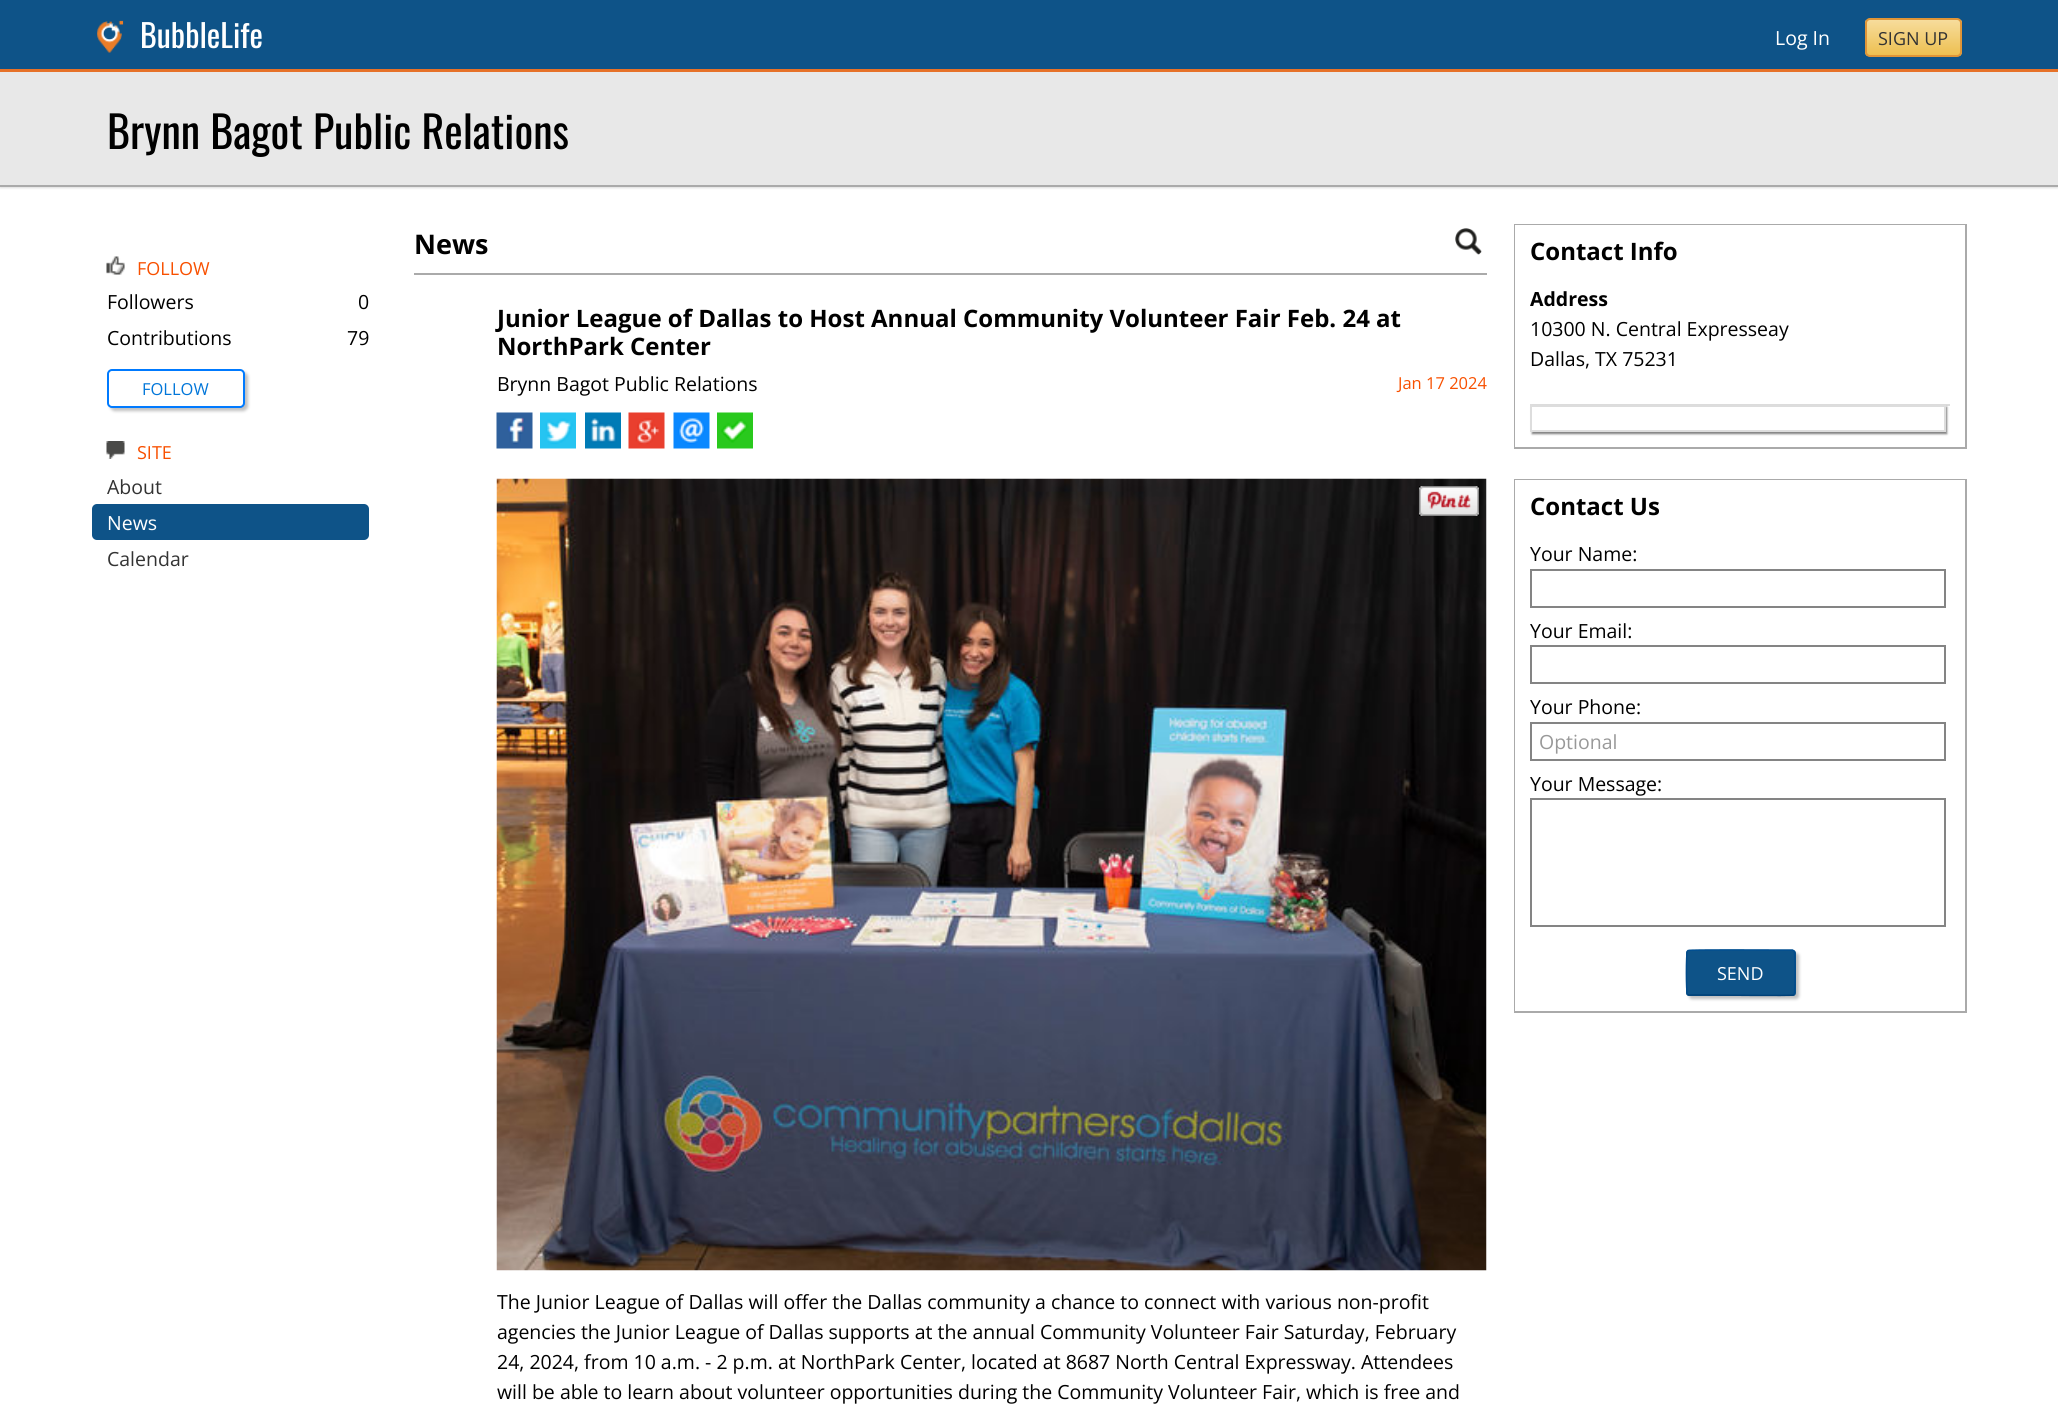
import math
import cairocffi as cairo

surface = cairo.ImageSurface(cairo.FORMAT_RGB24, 2058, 1424)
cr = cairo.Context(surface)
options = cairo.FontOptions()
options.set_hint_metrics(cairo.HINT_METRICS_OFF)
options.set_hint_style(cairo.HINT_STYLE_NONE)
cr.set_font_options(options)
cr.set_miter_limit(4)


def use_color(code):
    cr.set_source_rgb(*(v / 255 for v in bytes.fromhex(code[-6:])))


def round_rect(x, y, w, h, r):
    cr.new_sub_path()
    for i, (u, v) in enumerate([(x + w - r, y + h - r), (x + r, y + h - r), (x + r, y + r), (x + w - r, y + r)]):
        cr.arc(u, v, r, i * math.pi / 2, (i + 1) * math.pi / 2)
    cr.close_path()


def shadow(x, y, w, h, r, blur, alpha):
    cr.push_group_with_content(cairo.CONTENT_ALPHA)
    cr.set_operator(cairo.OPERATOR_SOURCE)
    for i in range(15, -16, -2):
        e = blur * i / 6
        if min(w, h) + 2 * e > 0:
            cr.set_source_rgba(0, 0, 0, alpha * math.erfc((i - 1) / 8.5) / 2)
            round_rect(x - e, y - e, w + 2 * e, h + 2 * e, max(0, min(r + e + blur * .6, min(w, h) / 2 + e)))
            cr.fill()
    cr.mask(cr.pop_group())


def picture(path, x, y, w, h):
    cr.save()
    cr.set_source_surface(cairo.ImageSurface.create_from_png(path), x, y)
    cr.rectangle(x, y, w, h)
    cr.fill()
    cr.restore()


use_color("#ffffff")
cr.paint()
use_color("#0e5388")
cr.rectangle(0, 0, 2058, 69)
cr.fill()
use_color("#e67127")
cr.rectangle(0, 69, 2058, 3)
cr.fill()
picture("img1.png", 97, 20, 27, 33)
cr.select_font_face("Oswald")
cr.set_font_size(32)
use_color("#ffffff")
cr.move_to(140, 48)
cr.show_text("BubbleLife")
cr.select_font_face("Open Sans")
cr.set_font_size(19.5)
cr.move_to(1775, 45)
cr.show_text("Log In")
cr.save()
round_rect(1865, 18, 97, 39, 5)
cr.clip()
gradient = cairo.LinearGradient(1913, 19, 1913, 56)
gradient.add_color_stop_rgba(0, 0.969, 0.867, 0.62, 1)
gradient.add_color_stop_rgba(1, 0.929, 0.749, 0.31, 1)
cr.set_source(gradient)
cr.rectangle(1865, 20, 97, 36)
cr.fill()
cr.restore()
round_rect(1866, 19, 95, 37, 4)
use_color("#df9538")
cr.stroke()
cr.set_font_size(18)
use_color("#333333")
cr.move_to(1878, 45)
cr.show_text("SIGN UP")
use_color("#dddddd")
shadow(0, 74, 2058, 114, 0, 1, 1)
use_color("#e8e8e8")
cr.rectangle(0, 72, 2058, 113)
cr.fill()
use_color("#aaaaaa")
cr.rectangle(0, 185, 2058, 2)
cr.fill()
cr.select_font_face("Oswald")
cr.set_font_size(44)
use_color("#000000")
cr.move_to(107, 149)
cr.show_text("Brynn Bagot Public Relations")
picture("img2.png", 106, 256, 19, 19)
cr.select_font_face("Open Sans")
cr.set_font_size(18)
use_color("#f85000")
cr.move_to(137, 275)
cr.show_text("FOLLOW")
cr.set_font_size(19.5)
use_color("#000000")
cr.move_to(107, 309)
cr.show_text("Followers")
cr.move_to(358, 309)
cr.show_text("0")
cr.move_to(107, 345)
cr.show_text("Contributions")
cr.move_to(347, 345)
cr.show_text("79")
use_color("#c0c0c0")
shadow(110, 372, 138, 39, 5, 1.5, 1)
use_color("#ffffff")
round_rect(108, 370, 136, 37, 4)
cr.fill_preserve()
use_color("#007aff")
cr.stroke()
cr.set_font_size(16.5)
use_color("#0176d9")
cr.move_to(142, 395)
cr.show_text("FOLLOW")
picture("img3.png", 106, 441, 19, 18)
cr.set_font_size(18)
use_color("#f85000")
cr.move_to(137, 459)
cr.show_text("SITE")
cr.set_font_size(19.5)
use_color("#333333")
cr.move_to(107, 494)
cr.show_text("About")
use_color("#0e5388")
round_rect(92, 504, 277, 36, 5)
cr.fill()
use_color("#ffffff")
cr.move_to(107, 530)
cr.show_text("News")
use_color("#333333")
cr.move_to(107, 566)
cr.show_text("Calendar")
use_color("#aaaaaa")
cr.rectangle(414, 273, 1073, 2)
cr.fill()
cr.select_font_face("Open Sans", cairo.FONT_SLANT_NORMAL, cairo.FONT_WEIGHT_BOLD)
cr.set_font_size(27)
use_color("#000000")
cr.move_to(414, 254)
cr.show_text("News")
picture("img4.png", 1455, 228, 27, 27)
cr.set_font_size(24)
cr.move_to(497, 327)
cr.show_text("Junior League of Dallas to Host Annual Community Volunteer Fair Feb. 24 at")
cr.move_to(497, 355)
cr.show_text("NorthPark Center")
cr.select_font_face("Open Sans")
cr.set_font_size(19.5)
cr.move_to(497, 391)
cr.show_text("Brynn Bagot Public Relations")
cr.set_font_size(16.5)
use_color("#f85000")
cr.move_to(1398, 389)
cr.show_text("Jan 17 2024")
picture("img5.png", 496, 412, 37, 37)
picture("img6.png", 540, 412, 36, 37)
picture("img7.png", 585, 412, 36, 37)
picture("img8.png", 628, 412, 37, 37)
picture("img9.png", 673, 412, 37, 37)
picture("img10.png", 717, 412, 36, 37)
picture("img11.png", 496, 478, 991, 793)
picture("img12.png", 1419, 486, 60, 30)
cr.set_font_size(19.5)
use_color("#000000")
cr.move_to(497, 1309)
cr.show_text("The Junior League of Dallas will offer the Dallas community a chance to connect with various non-profit")
cr.move_to(497, 1339)
cr.show_text("agencies the Junior League of Dallas supports at the annual Community Volunteer Fair Saturday, February")
cr.move_to(497, 1369)
cr.show_text("24, 2024, from 10 a.m. - 2 p.m. at NorthPark Center, located at 8687 North Central Expressway. Attendees")
cr.move_to(497, 1399)
cr.show_text("will be able to learn about volunteer opportunities during the Community Volunteer Fair, which is free and")
cr.rectangle(1515, 225, 451, 223)
use_color("#aaaaaa")
cr.stroke()
use_color("#ffffff")
cr.rectangle(1515, 225, 450, 222)
cr.fill()
cr.select_font_face("Open Sans", cairo.FONT_SLANT_NORMAL, cairo.FONT_WEIGHT_BOLD)
cr.set_font_size(24)
use_color("#000000")
cr.move_to(1530, 260)
cr.show_text("Contact Info")
cr.set_font_size(19.5)
cr.move_to(1530, 306)
cr.show_text("Address")
cr.select_font_face("Open Sans")
cr.move_to(1530, 336)
cr.show_text("10300 N. Central Expresseay")
cr.move_to(1530, 366)
cr.show_text("Dallas, TX 75231")
use_color("#dddddd")
cr.rectangle(1530, 404, 420, 2)
cr.fill()
cr.save()
cr.set_fill_rule(cairo.FILL_RULE_EVEN_ODD)
cr.new_path()
cr.move_to(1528, 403)
cr.line_to(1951, 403)
cr.line_to(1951, 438)
cr.line_to(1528, 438)
cr.close_path()
cr.move_to(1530, 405)
cr.line_to(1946, 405)
cr.line_to(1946, 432)
cr.line_to(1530, 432)
cr.close_path()
cr.clip()
use_color("#808080")
shadow(1532, 407, 415, 27, 0, 1, 1)
cr.restore()
cr.rectangle(1531, 406, 414, 25)
cr.stroke()
cr.rectangle(1515, 480, 451, 532)
use_color("#aaaaaa")
cr.stroke()
use_color("#ffffff")
cr.rectangle(1515, 480, 450, 531)
cr.fill()
cr.select_font_face("Open Sans", cairo.FONT_SLANT_NORMAL, cairo.FONT_WEIGHT_BOLD)
cr.set_font_size(24)
use_color("#000000")
cr.move_to(1530, 515)
cr.show_text("Contact Us")
cr.select_font_face("Open Sans")
cr.set_font_size(19.5)
cr.move_to(1530, 561)
cr.show_text("Your Name:")
cr.rectangle(1531, 570, 414, 37)
use_color("#848484")
cr.stroke()
use_color("#000000")
cr.move_to(1530, 638)
cr.show_text("Your Email:")
cr.rectangle(1531, 646, 414, 37)
use_color("#848484")
cr.stroke()
use_color("#000000")
cr.move_to(1530, 714)
cr.show_text("Your Phone:")
cr.rectangle(1531, 723, 414, 37)
use_color("#848484")
cr.stroke()
use_color("#999999")
cr.move_to(1539, 749)
cr.show_text("Optional")
use_color("#000000")
cr.move_to(1530, 791)
cr.show_text("Your Message:")
cr.rectangle(1531, 799, 414, 127)
use_color("#848484")
cr.stroke()
use_color("#c0c0c0")
shadow(1689, 953, 110, 46, 3, 1.5, 1)
use_color("#0e5388")
round_rect(1686, 950, 110, 46, 3)
cr.fill()
cr.new_path()
cr.move_to(1687.5, 951)
cr.line_to(1688, 950.5)
cr.curve_to(1689.5, 949.5, 1766.5, 950, 1775, 950)
cr.line_to(1792.5, 950)
cr.line_to(1794, 951)
use_color("#004e91")
cr.set_line_width(1.5)
cr.stroke()
cr.new_path()
cr.move_to(1794, 951)
cr.curve_to(1795.5, 952, 1795.5, 993.5, 1794, 994.5)
use_color("#014b8b")
cr.stroke()
cr.new_path()
cr.move_to(1794, 994.5)
cr.line_to(1793.5, 995)
cr.curve_to(1792, 996, 1715, 995, 1706, 995)
cr.line_to(1689, 995)
cr.line_to(1687.5, 994.5)
use_color("#004178")
cr.stroke()
cr.new_path()
cr.move_to(1687.5, 994.5)
cr.curve_to(1686, 993.5, 1686, 952, 1687.5, 951)
use_color("#014b8b")
cr.stroke()
cr.set_font_size(18)
use_color("#ffffff")
cr.move_to(1717, 980)
cr.show_text("SEND")
surface.write_to_png("result.png")
